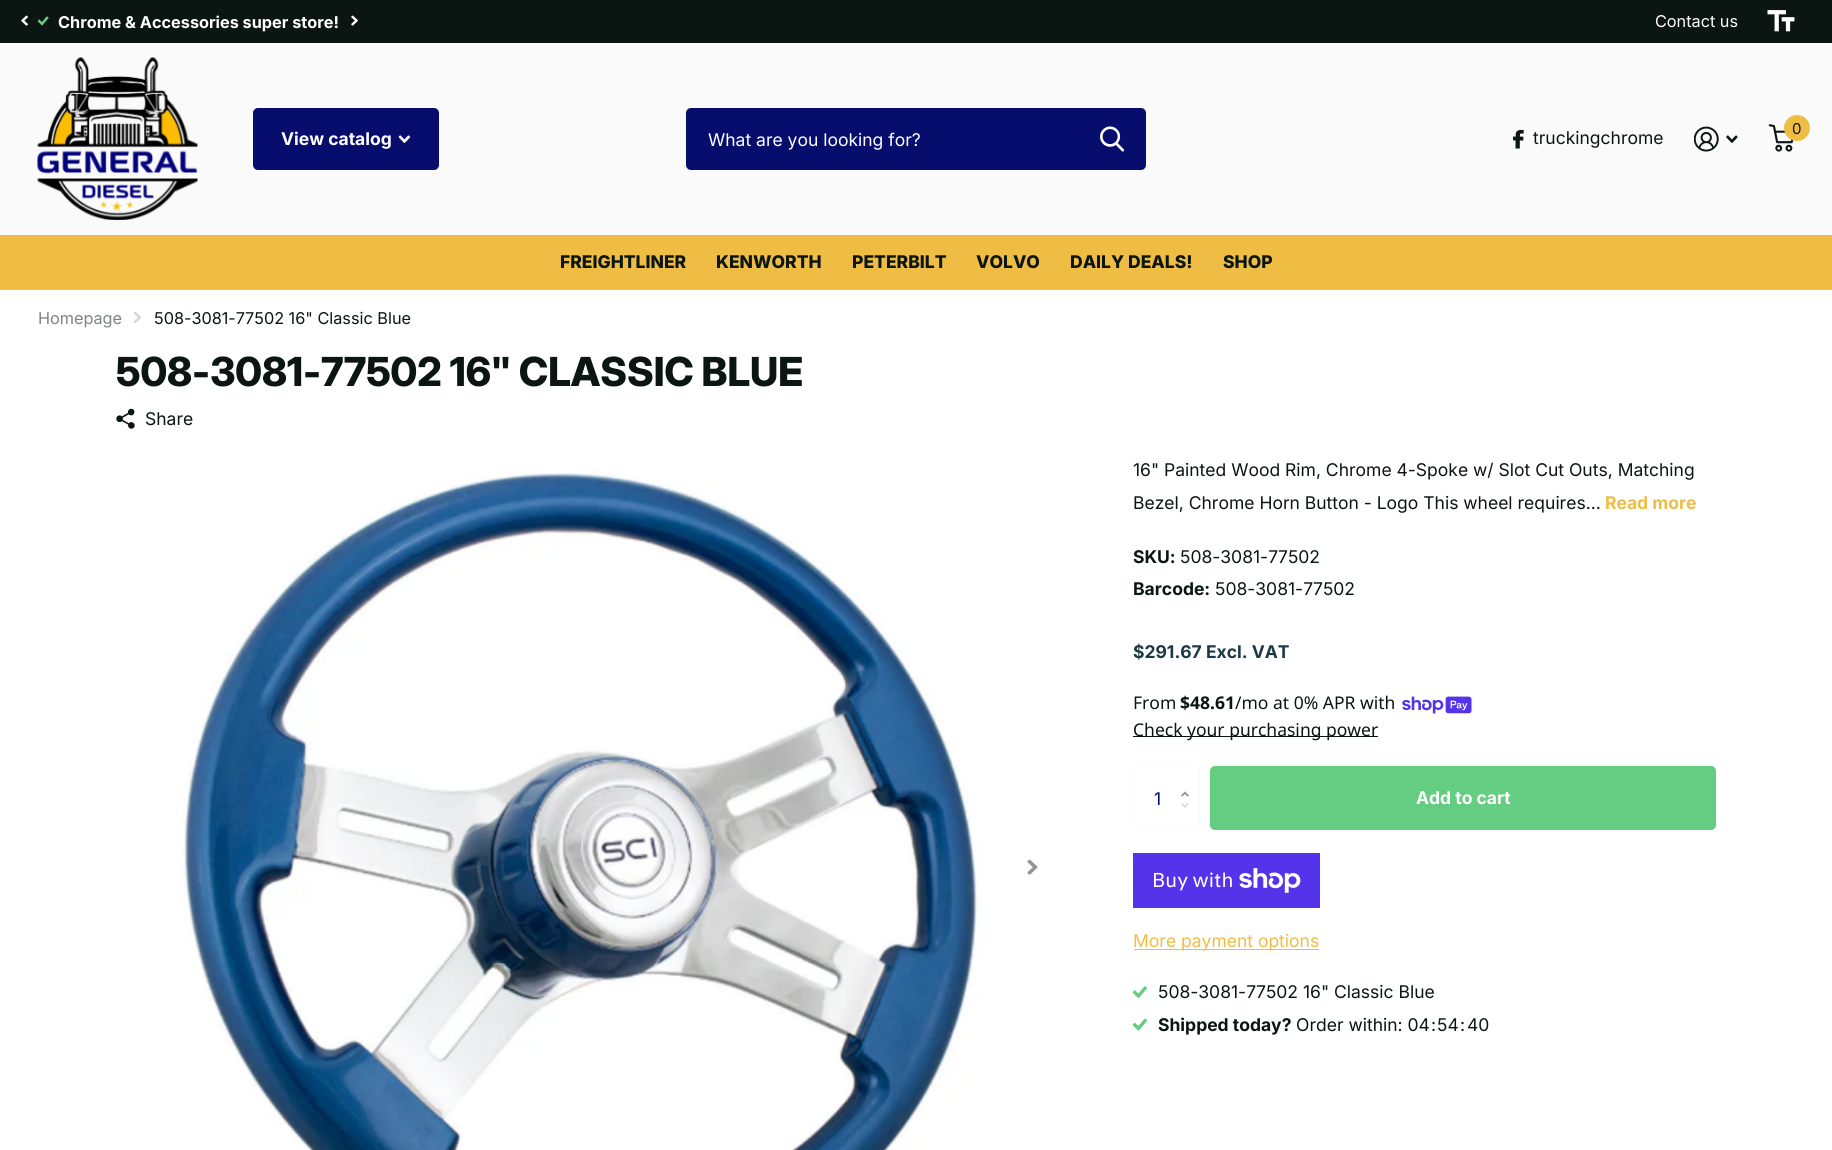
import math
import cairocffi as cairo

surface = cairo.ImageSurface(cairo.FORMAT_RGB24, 1832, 1150)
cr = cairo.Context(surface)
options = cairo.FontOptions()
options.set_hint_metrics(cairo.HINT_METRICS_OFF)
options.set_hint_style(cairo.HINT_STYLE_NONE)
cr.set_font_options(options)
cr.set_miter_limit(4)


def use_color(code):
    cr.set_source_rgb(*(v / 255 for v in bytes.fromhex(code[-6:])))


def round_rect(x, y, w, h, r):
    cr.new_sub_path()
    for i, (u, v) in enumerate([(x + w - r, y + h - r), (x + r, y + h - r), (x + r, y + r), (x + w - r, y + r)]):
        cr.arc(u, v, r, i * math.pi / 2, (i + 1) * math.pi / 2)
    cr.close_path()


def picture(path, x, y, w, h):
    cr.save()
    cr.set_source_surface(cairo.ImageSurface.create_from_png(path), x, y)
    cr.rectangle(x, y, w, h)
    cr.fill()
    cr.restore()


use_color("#ffffff")
cr.paint()
use_color("#0b1613")
cr.rectangle(0, 0, 1832, 43)
cr.fill()
picture("img1.png", 21, 15, 7, 11)
picture("img2.png", 38, 16, 11, 10)
cr.select_font_face("Inter", cairo.FONT_SLANT_NORMAL, cairo.FONT_WEIGHT_BOLD)
cr.set_font_size(16.25)
use_color("#ffffff")
cr.move_to(58, 28)
cr.show_text("Chrome & Accessories super store!")
picture("img3.png", 351, 15, 7, 11)
cr.select_font_face("Inter")
cr.move_to(1655, 27)
cr.show_text("Contact us")
picture("img4.png", 1767, 10, 28, 22)
use_color("#fafafa")
cr.rectangle(0, 43, 1832, 192)
cr.fill()
picture("img5.png", 37, 57, 161, 163)
use_color("#070d6d")
round_rect(253, 108, 186, 62, 5)
cr.fill()
cr.select_font_face("Inter", cairo.FONT_SLANT_NORMAL, cairo.FONT_WEIGHT_BOLD)
cr.set_font_size(17.5)
use_color("#ffffff")
cr.move_to(281, 145)
cr.show_text("View catalog")
picture("img6.png", 398, 135, 12, 8)
use_color("#070d6d")
round_rect(686, 108, 460, 62, 5)
cr.fill()
cr.select_font_face("Inter")
use_color("#ffffff")
cr.move_to(708, 146)
cr.show_text("What are you looking for?")
picture("img7.png", 1100, 126, 25, 26)
picture("img8.png", 1513, 129, 11, 20)
use_color("#0b1613")
cr.move_to(1533, 144)
cr.show_text("truckingchrome")
picture("img9.png", 1694, 126, 25, 26)
picture("img10.png", 1726, 135, 12, 8)
picture("img11.png", 1768, 124, 26, 28)
use_color("#efbd43")
cr.arc(1797, 128, 13, 0, 2 * math.pi)
cr.fill()
cr.set_font_size(15)
use_color("#0b1613")
cr.move_to(1792, 134)
cr.show_text("0")
use_color("#efbd43")
cr.rectangle(0, 235, 1832, 55)
cr.fill()
cr.select_font_face("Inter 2 ExtraBold")
cr.set_font_size(17.5)
use_color("#0b1613")
cr.move_to(560, 268)
cr.show_text("FREIGHTLINER")
cr.move_to(716, 268)
cr.show_text("KENWORTH")
cr.move_to(852, 268)
cr.show_text("PETERBILT")
cr.move_to(976, 268)
cr.show_text("VOLVO")
cr.move_to(1070, 268)
cr.show_text("DAILY DEALS!")
cr.move_to(1223, 268)
cr.show_text("SHOP")
cr.select_font_face("Inter")
cr.set_font_size(16.25)
use_color("#7e8482")
cr.move_to(38, 324)
cr.show_text("Homepage")
picture("img12.png", 133, 312, 9, 11)
use_color("#0b1613")
cr.move_to(154, 324)
cr.show_text("508-3081-77502 16\" Classic Blue")
cr.select_font_face("Inter ExtraBold")
cr.set_font_size(40)
cr.move_to(116, 386)
cr.show_text("508-3081-77502 16\" CLASSIC BLUE")
picture("img13.png", 116, 408, 19, 21)
cr.select_font_face("Inter")
cr.set_font_size(17.5)
cr.move_to(145, 425)
cr.show_text("Share")
picture("img14.png", 181, 467, 803, 683)
picture("img15.png", 1027, 859, 11, 16)
cr.move_to(1133, 476)
cr.show_text("16\" Painted Wood Rim, Chrome 4-Spoke w/ Slot Cut Outs, Matching")
cr.move_to(1133, 509)
cr.show_text("Bezel, Chrome Horn Button - Logo This wheel requires...")
cr.select_font_face("Inter", cairo.FONT_SLANT_NORMAL, cairo.FONT_WEIGHT_BOLD)
use_color("#efbd43")
cr.move_to(1605, 509)
cr.show_text("Read more")
use_color("#0b1613")
cr.move_to(1133, 563)
cr.show_text("SKU:")
cr.select_font_face("Inter")
cr.move_to(1180, 563)
cr.show_text("508-3081-77502")
cr.select_font_face("Inter", cairo.FONT_SLANT_NORMAL, cairo.FONT_WEIGHT_BOLD)
cr.move_to(1133, 595)
cr.show_text("Barcode:")
cr.select_font_face("Inter")
cr.move_to(1215, 595)
cr.show_text("508-3081-77502")
cr.select_font_face("Inter", cairo.FONT_SLANT_NORMAL, cairo.FONT_WEIGHT_BOLD)
use_color("#1a3945")
cr.move_to(1133, 658)
cr.show_text("$291.67 Excl. VAT")
cr.select_font_face("Noto Sans")
use_color("#0b1613")
cr.move_to(1133, 709)
cr.show_text("From")
cr.select_font_face("Noto Sans", cairo.FONT_SLANT_NORMAL, cairo.FONT_WEIGHT_BOLD)
cr.move_to(1180, 709)
cr.show_text("$48.61")
cr.select_font_face("Noto Sans")
cr.move_to(1235, 709)
cr.show_text("/mo at 0% APR with")
picture("img16.png", 1402, 696, 70, 18)
cr.rectangle(1133, 736, 245, 1)
cr.fill()
cr.move_to(1133, 736)
cr.show_text("Check your purchasing power")
round_rect(1133.5, 766.5, 66, 63, 4.5)
use_color("#fafafa")
cr.set_line_width(1)
cr.stroke()
cr.select_font_face("Inter")
use_color("#070d6d")
cr.move_to(1154, 805)
cr.show_text("1")
picture("img17.png", 1181, 791, 8, 6)
picture("img18.png", 1181, 803, 8, 5)
use_color("#64cd82")
round_rect(1210, 766, 506, 64, 5)
cr.fill()
cr.select_font_face("Inter", cairo.FONT_SLANT_NORMAL, cairo.FONT_WEIGHT_BOLD)
use_color("#ffffff")
cr.move_to(1416, 804)
cr.show_text("Add to cart")
use_color("#5433eb")
cr.rectangle(1133, 853, 187, 55)
cr.fill()
cr.select_font_face("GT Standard")
cr.set_font_size(20)
use_color("#ffffff")
cr.move_to(1152, 887)
cr.show_text("Buy with")
picture("img19.png", 1239, 868, 62, 25)
use_color("#efbd43")
cr.rectangle(1134, 949, 185, 1)
cr.fill()
cr.select_font_face("Inter")
cr.set_font_size(17.5)
cr.move_to(1133, 947)
cr.show_text("More payment options")
picture("img20.png", 1132, 986, 16, 13)
use_color("#0b1613")
cr.move_to(1158, 998)
cr.show_text("508-3081-77502 16\" Classic Blue")
picture("img21.png", 1132, 1018, 16, 13)
cr.select_font_face("Inter", cairo.FONT_SLANT_NORMAL, cairo.FONT_WEIGHT_BOLD)
cr.move_to(1158, 1031)
cr.show_text("Shipped today?")
cr.select_font_face("Inter")
cr.move_to(1296, 1031)
cr.show_text("Order within: 04")
cr.move_to(1431, 1031)
cr.show_text(":")
cr.move_to(1437, 1031)
cr.show_text("54")
cr.move_to(1460, 1031)
cr.show_text(":")
cr.move_to(1467, 1031)
cr.show_text("40")
surface.write_to_png("result.png")
